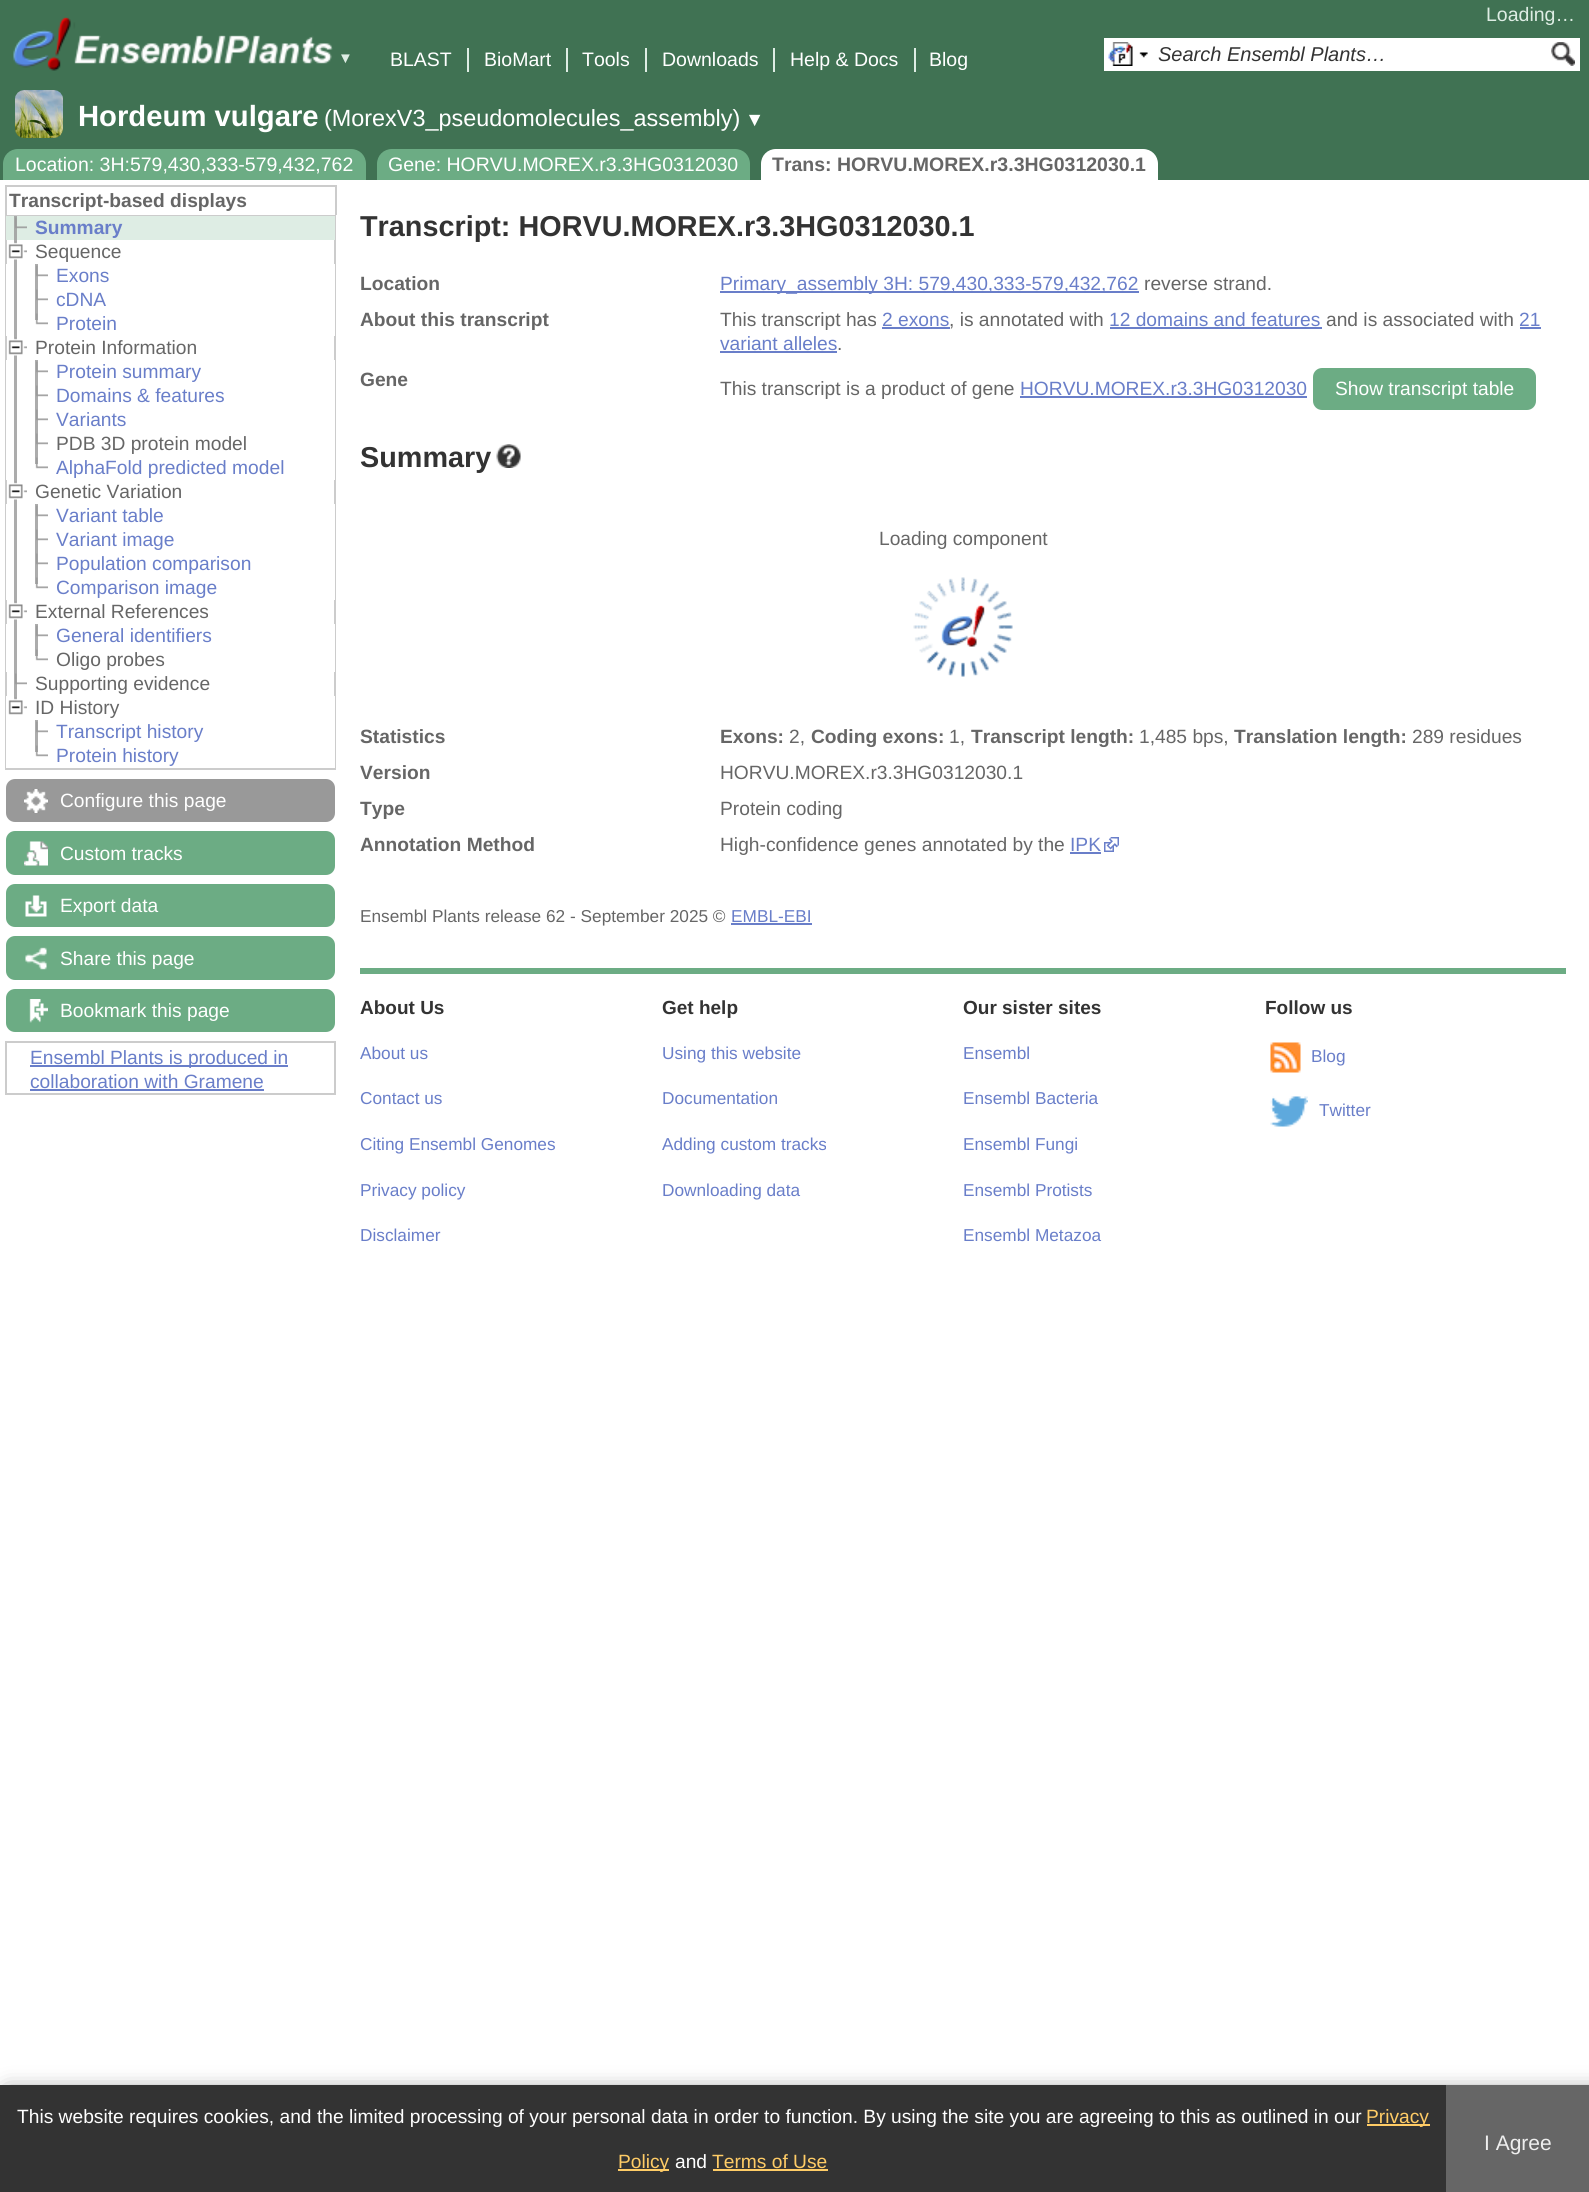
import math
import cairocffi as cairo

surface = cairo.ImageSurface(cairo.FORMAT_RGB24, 1589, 2192)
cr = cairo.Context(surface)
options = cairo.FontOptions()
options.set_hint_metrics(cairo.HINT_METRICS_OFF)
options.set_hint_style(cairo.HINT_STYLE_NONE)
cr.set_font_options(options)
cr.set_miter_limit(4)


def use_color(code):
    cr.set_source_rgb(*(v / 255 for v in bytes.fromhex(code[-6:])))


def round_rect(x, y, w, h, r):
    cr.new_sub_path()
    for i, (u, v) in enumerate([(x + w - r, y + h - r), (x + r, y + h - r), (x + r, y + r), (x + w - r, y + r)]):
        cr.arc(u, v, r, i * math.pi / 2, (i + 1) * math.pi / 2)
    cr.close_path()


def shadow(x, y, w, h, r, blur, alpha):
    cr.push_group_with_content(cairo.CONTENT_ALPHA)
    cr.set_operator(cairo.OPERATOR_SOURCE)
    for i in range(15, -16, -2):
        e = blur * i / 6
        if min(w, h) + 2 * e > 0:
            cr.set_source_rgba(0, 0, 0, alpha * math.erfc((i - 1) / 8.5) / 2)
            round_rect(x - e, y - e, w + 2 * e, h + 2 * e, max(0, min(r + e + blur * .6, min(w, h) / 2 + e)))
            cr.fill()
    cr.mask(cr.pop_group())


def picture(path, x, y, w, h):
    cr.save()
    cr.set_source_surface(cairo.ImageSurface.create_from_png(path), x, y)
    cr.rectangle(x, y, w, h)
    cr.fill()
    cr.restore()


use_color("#ffffff")
cr.paint()
use_color("#407253")
cr.rectangle(0, 0, 1589, 180)
cr.fill()
picture("img1.png", 13, 17, 58, 54)
picture("img2.png", 73, 22, 260, 42)
cr.select_font_face("Liberation Sans")
cr.set_font_size(15)
use_color("#deede4")
cr.move_to(338, 63)
cr.show_text("▼")
cr.set_font_size(19.5)
cr.move_to(1486, 21)
cr.show_text("Loading…")
cr.rectangle(467, 48, 2, 24)
cr.fill()
use_color("#ffffff")
cr.move_to(390, 66)
cr.show_text("BLAST")
use_color("#deede4")
cr.rectangle(566, 48, 2, 24)
cr.fill()
use_color("#ffffff")
cr.move_to(484, 66)
cr.show_text("BioMart")
use_color("#deede4")
cr.rectangle(645, 48, 2, 24)
cr.fill()
use_color("#ffffff")
cr.move_to(582, 66)
cr.show_text("Tools")
use_color("#deede4")
cr.rectangle(773, 48, 2, 24)
cr.fill()
use_color("#ffffff")
cr.move_to(662, 66)
cr.show_text("Downloads")
use_color("#deede4")
cr.rectangle(914, 48, 2, 24)
cr.fill()
use_color("#ffffff")
cr.move_to(790, 66)
cr.show_text("Help & Docs")
cr.move_to(929, 66)
cr.show_text("Blog")
cr.rectangle(1104, 38, 476, 33)
cr.fill()
picture("img3.png", 1108, 42, 25, 24)
picture("img4.png", 1139, 52, 9, 6)
cr.select_font_face("Liberation Sans", cairo.FONT_SLANT_ITALIC)
cr.set_font_size(20)
use_color("#333333")
cr.move_to(1158, 61)
cr.show_text("Search Ensembl Plants…")
picture("img5.png", 1551, 42, 24, 24)
picture("img6.png", 15, 90, 48, 48)
cr.select_font_face("Liberation Sans", cairo.FONT_SLANT_NORMAL, cairo.FONT_WEIGHT_BOLD)
cr.set_font_size(29.25)
use_color("#ffffff")
cr.move_to(78, 126)
cr.show_text("Hordeum vulgare")
cr.select_font_face("Liberation Sans")
cr.set_font_size(23.4)
cr.move_to(324, 126)
cr.show_text("(MorexV3_pseudomolecules_assembly)")
cr.set_font_size(19.5)
cr.move_to(745, 126)
cr.show_text("▼")
use_color("#6cac84")
cr.new_path()
cr.move_to(18, 149)
cr.line_to(351, 149)
cr.curve_to(359.5, 149, 366, 155.5, 366, 164)
cr.line_to(366, 180)
cr.line_to(3, 180)
cr.line_to(3, 164)
cr.curve_to(3, 155.5, 9.5, 149, 18, 149)
cr.close_path()
cr.fill()
use_color("#ffffff")
cr.move_to(15, 171)
cr.show_text("Location: 3H:579,430,333-579,432,762")
use_color("#6cac84")
cr.new_path()
cr.move_to(392, 149)
cr.line_to(735, 149)
cr.curve_to(743.5, 149, 750, 155.5, 750, 164)
cr.line_to(750, 180)
cr.line_to(377, 180)
cr.line_to(377, 164)
cr.curve_to(377, 155.5, 383.5, 149, 392, 149)
cr.close_path()
cr.fill()
use_color("#ffffff")
cr.move_to(388, 171)
cr.show_text("Gene: HORVU.MOREX.r3.3HG0312030")
cr.new_path()
cr.move_to(776, 149)
cr.line_to(1143, 149)
cr.curve_to(1151.5, 149, 1158, 155.5, 1158, 164)
cr.line_to(1158, 180)
cr.line_to(761, 180)
cr.line_to(761, 164)
cr.curve_to(761, 155.5, 767.5, 149, 776, 149)
cr.close_path()
cr.fill()
cr.select_font_face("Liberation Sans", cairo.FONT_SLANT_NORMAL, cairo.FONT_WEIGHT_BOLD)
use_color("#666666")
cr.move_to(772, 171)
cr.show_text("Trans: HORVU.MOREX.r3.3HG0312030.1")
use_color("#cccccc")
cr.rectangle(5, 185, 331, 2)
cr.fill()
cr.rectangle(335, 185, 2, 30)
cr.fill()
cr.rectangle(5, 185, 2, 30)
cr.fill()
cr.set_font_size(19.2)
use_color("#666666")
cr.move_to(9, 207)
cr.show_text("Transcript-based displays")
cr.rectangle(6, 216, 329, 553)
use_color("#cccccc")
cr.stroke()
use_color("#deede4")
cr.rectangle(6, 216, 329, 24)
cr.fill()
use_color("#a6a9a7")
cr.rectangle(14, 216, 3, 24)
cr.fill()
picture("img7.png", 15, 217, 12, 12)
use_color("#697ec9")
cr.move_to(35, 234)
cr.show_text("Summary")
use_color("#acacac")
cr.rectangle(14, 240, 3, 24)
cr.fill()
picture("img8.png", 8, 241, 19, 19)
cr.select_font_face("Liberation Sans")
use_color("#666666")
cr.move_to(35, 258)
cr.show_text("Sequence")
use_color("#ffffff")
cr.rectangle(6, 264, 329, 72)
cr.fill()
use_color("#acacac")
cr.rectangle(14, 264, 3, 96)
cr.fill()
cr.rectangle(35, 264, 3, 56)
cr.fill()
picture("img9.png", 36, 265, 12, 12)
use_color("#697ec9")
cr.move_to(56, 282)
cr.show_text("Exons")
picture("img9.png", 36, 289, 12, 12)
cr.move_to(56, 306)
cr.show_text("cDNA")
picture("img10.png", 35, 313, 13, 12)
cr.move_to(56, 330)
cr.show_text("Protein")
picture("img8.png", 8, 337, 19, 19)
use_color("#666666")
cr.move_to(35, 354)
cr.show_text("Protein Information")
use_color("#ffffff")
cr.rectangle(6, 360, 329, 120)
cr.fill()
use_color("#acacac")
cr.rectangle(14, 360, 3, 144)
cr.fill()
cr.rectangle(35, 360, 3, 104)
cr.fill()
picture("img9.png", 36, 361, 12, 12)
use_color("#697ec9")
cr.move_to(56, 378)
cr.show_text("Protein summary")
picture("img9.png", 36, 385, 12, 12)
cr.move_to(56, 402)
cr.show_text("Domains & features")
picture("img9.png", 36, 409, 12, 12)
cr.move_to(56, 426)
cr.show_text("Variants")
picture("img9.png", 36, 433, 12, 12)
use_color("#666666")
cr.move_to(56, 450)
cr.show_text("PDB 3D protein model")
picture("img10.png", 35, 457, 13, 12)
use_color("#697ec9")
cr.move_to(56, 474)
cr.show_text("AlphaFold predicted model")
picture("img8.png", 8, 481, 19, 19)
use_color("#666666")
cr.move_to(35, 498)
cr.show_text("Genetic Variation")
use_color("#ffffff")
cr.rectangle(6, 504, 329, 96)
cr.fill()
use_color("#acacac")
cr.rectangle(14, 504, 3, 120)
cr.fill()
cr.rectangle(35, 504, 3, 80)
cr.fill()
picture("img9.png", 36, 505, 12, 12)
use_color("#697ec9")
cr.move_to(56, 522)
cr.show_text("Variant table")
picture("img9.png", 36, 529, 12, 12)
cr.move_to(56, 546)
cr.show_text("Variant image")
picture("img9.png", 36, 553, 12, 12)
cr.move_to(56, 570)
cr.show_text("Population comparison")
picture("img10.png", 35, 577, 13, 12)
cr.move_to(56, 594)
cr.show_text("Comparison image")
picture("img8.png", 8, 601, 19, 19)
use_color("#666666")
cr.move_to(35, 618)
cr.show_text("External References")
use_color("#ffffff")
cr.rectangle(6, 624, 329, 48)
cr.fill()
use_color("#acacac")
cr.rectangle(14, 624, 3, 72)
cr.fill()
cr.rectangle(35, 624, 3, 32)
cr.fill()
picture("img9.png", 36, 625, 12, 12)
use_color("#697ec9")
cr.move_to(56, 642)
cr.show_text("General identifiers")
picture("img10.png", 35, 649, 13, 12)
use_color("#666666")
cr.move_to(56, 666)
cr.show_text("Oligo probes")
picture("img9.png", 15, 673, 12, 12)
cr.move_to(35, 690)
cr.show_text("Supporting evidence")
use_color("#ffffff")
cr.rectangle(6, 696, 329, 72)
cr.fill()
use_color("#acacac")
cr.rectangle(14, 696, 3, 8)
cr.fill()
picture("img11.png", 8, 697, 19, 18)
use_color("#666666")
cr.move_to(35, 714)
cr.show_text("ID History")
use_color("#acacac")
cr.rectangle(35, 720, 3, 32)
cr.fill()
picture("img9.png", 36, 721, 12, 12)
use_color("#697ec9")
cr.move_to(56, 738)
cr.show_text("Transcript history")
picture("img10.png", 35, 745, 13, 12)
cr.move_to(56, 762)
cr.show_text("Protein history")
use_color("#999999")
round_rect(6, 779, 329, 43, 9)
cr.fill()
picture("img12.png", 24, 789, 24, 24)
use_color("#ffffff")
cr.move_to(60, 807)
cr.show_text("Configure this page")
use_color("#6cac84")
round_rect(6, 831, 329, 44, 9)
cr.fill()
picture("img13.png", 24, 841, 24, 25)
use_color("#ffffff")
cr.move_to(60, 860)
cr.show_text("Custom tracks")
use_color("#6cac84")
round_rect(6, 884, 329, 43, 9)
cr.fill()
picture("img14.png", 25, 895, 22, 22)
use_color("#ffffff")
cr.move_to(60, 912)
cr.show_text("Export data")
use_color("#6cac84")
round_rect(6, 936, 329, 44, 9)
cr.fill()
picture("img15.png", 25, 947, 22, 23)
use_color("#ffffff")
cr.move_to(60, 965)
cr.show_text("Share this page")
use_color("#6cac84")
round_rect(6, 989, 329, 43, 9)
cr.fill()
picture("img16.png", 29, 999, 19, 24)
use_color("#ffffff")
cr.move_to(60, 1017)
cr.show_text("Bookmark this page")
cr.rectangle(6, 1042, 329, 52)
use_color("#cccccc")
cr.stroke()
use_color("#697ec9")
cr.rectangle(30, 1065, 258, 2)
cr.fill()
cr.move_to(30, 1064)
cr.show_text("Ensembl Plants is produced in")
cr.move_to(30, 1088)
cr.show_text("collaboration with Gramene")
cr.rectangle(30, 1089, 234, 2)
cr.fill()
cr.select_font_face("Liberation Sans", cairo.FONT_SLANT_NORMAL, cairo.FONT_WEIGHT_BOLD)
cr.set_font_size(28.8)
use_color("#333333")
cr.move_to(360, 236)
cr.show_text("Transcript: HORVU.MOREX.r3.3HG0312030.1")
cr.set_font_size(19.2)
use_color("#666666")
cr.move_to(360, 290)
cr.show_text("Location")
use_color("#697ec9")
cr.rectangle(720, 291, 419, 2)
cr.fill()
cr.select_font_face("Liberation Sans")
cr.move_to(720, 290)
cr.show_text("Primary_assembly 3H: 579,430,333-579,432,762")
use_color("#666666")
cr.move_to(1144, 290)
cr.show_text("reverse strand.")
cr.select_font_face("Liberation Sans", cairo.FONT_SLANT_NORMAL, cairo.FONT_WEIGHT_BOLD)
cr.move_to(360, 326)
cr.show_text("About this transcript")
cr.select_font_face("Liberation Sans")
cr.move_to(720, 326)
cr.show_text("This transcript has")
use_color("#697ec9")
cr.move_to(882, 326)
cr.show_text("2 exons")
cr.rectangle(882, 327, 68, 2)
cr.fill()
use_color("#666666")
cr.move_to(949, 326)
cr.show_text(", is annotated with")
use_color("#697ec9")
cr.move_to(1109, 326)
cr.show_text("12 domains and features")
cr.rectangle(1110, 327, 212, 2)
cr.fill()
use_color("#666666")
cr.move_to(1326, 326)
cr.show_text("and is associated with")
use_color("#697ec9")
cr.move_to(1519, 326)
cr.show_text("21")
cr.rectangle(1520, 327, 21, 2)
cr.fill()
cr.move_to(720, 350)
cr.show_text("variant alleles")
cr.rectangle(720, 351, 117, 2)
cr.fill()
use_color("#666666")
cr.move_to(837, 350)
cr.show_text(".")
cr.select_font_face("Liberation Sans", cairo.FONT_SLANT_NORMAL, cairo.FONT_WEIGHT_BOLD)
cr.move_to(360, 386)
cr.show_text("Gene")
cr.select_font_face("Liberation Sans")
cr.move_to(720, 395)
cr.show_text("This transcript is a product of gene")
use_color("#697ec9")
cr.move_to(1020, 395)
cr.show_text("HORVU.MOREX.r3.3HG0312030")
cr.rectangle(1020, 396, 287, 2)
cr.fill()
use_color("#6cac84")
round_rect(1313, 368, 223, 42, 9)
cr.fill()
use_color("#ffffff")
cr.move_to(1335, 395)
cr.show_text("Show transcript table")
cr.select_font_face("Liberation Sans", cairo.FONT_SLANT_NORMAL, cairo.FONT_WEIGHT_BOLD)
cr.set_font_size(28.8)
use_color("#333333")
cr.move_to(360, 467)
cr.show_text("Summary")
picture("img17.png", 496, 444, 25, 24)
picture("img18.png", 913, 577, 100, 100)
cr.select_font_face("Liberation Sans")
cr.set_font_size(19.2)
use_color("#666666")
cr.move_to(879, 545)
cr.show_text("Loading component")
cr.select_font_face("Liberation Sans", cairo.FONT_SLANT_NORMAL, cairo.FONT_WEIGHT_BOLD)
cr.move_to(360, 743)
cr.show_text("Statistics")
cr.move_to(720, 743)
cr.show_text("Exons:")
cr.select_font_face("Liberation Sans")
cr.move_to(789, 743)
cr.show_text("2,")
cr.select_font_face("Liberation Sans", cairo.FONT_SLANT_NORMAL, cairo.FONT_WEIGHT_BOLD)
cr.move_to(811, 743)
cr.show_text("Coding exons:")
cr.select_font_face("Liberation Sans")
cr.move_to(949, 743)
cr.show_text("1,")
cr.select_font_face("Liberation Sans", cairo.FONT_SLANT_NORMAL, cairo.FONT_WEIGHT_BOLD)
cr.move_to(971, 743)
cr.show_text("Transcript length:")
cr.select_font_face("Liberation Sans")
cr.move_to(1139, 743)
cr.show_text("1,485 bps,")
cr.select_font_face("Liberation Sans", cairo.FONT_SLANT_NORMAL, cairo.FONT_WEIGHT_BOLD)
cr.move_to(1234, 743)
cr.show_text("Translation length:")
cr.select_font_face("Liberation Sans")
cr.move_to(1412, 743)
cr.show_text("289 residues")
cr.select_font_face("Liberation Sans", cairo.FONT_SLANT_NORMAL, cairo.FONT_WEIGHT_BOLD)
cr.move_to(360, 779)
cr.show_text("Version")
cr.select_font_face("Liberation Sans")
cr.move_to(720, 779)
cr.show_text("HORVU.MOREX.r3.3HG0312030.1")
cr.select_font_face("Liberation Sans", cairo.FONT_SLANT_NORMAL, cairo.FONT_WEIGHT_BOLD)
cr.move_to(360, 815)
cr.show_text("Type")
cr.select_font_face("Liberation Sans")
cr.move_to(720, 815)
cr.show_text("Protein coding")
cr.select_font_face("Liberation Sans", cairo.FONT_SLANT_NORMAL, cairo.FONT_WEIGHT_BOLD)
cr.move_to(360, 851)
cr.show_text("Annotation Method")
cr.select_font_face("Liberation Sans")
cr.move_to(720, 851)
cr.show_text("High-confidence genes annotated by the")
use_color("#697ec9")
cr.move_to(1070, 851)
cr.show_text("IPK")
cr.rectangle(1070, 852, 31, 2)
cr.fill()
picture("img19.png", 1104, 837, 15, 15)
cr.set_font_size(17.25)
use_color("#666666")
cr.move_to(360, 922)
cr.show_text("Ensembl Plants release 62 - September 2025 ©")
use_color("#697ec9")
cr.move_to(731, 922)
cr.show_text("EMBL-EBI")
cr.rectangle(731, 923, 81, 2)
cr.fill()
use_color("#6cac84")
cr.rectangle(360, 968, 1206, 6)
cr.fill()
cr.select_font_face("Liberation Sans", cairo.FONT_SLANT_NORMAL, cairo.FONT_WEIGHT_BOLD)
cr.set_font_size(19)
use_color("#333333")
cr.move_to(360, 1014)
cr.show_text("About Us")
cr.select_font_face("Liberation Sans")
cr.set_font_size(17.25)
use_color("#697ec9")
cr.move_to(360, 1059)
cr.show_text("About us")
cr.move_to(360, 1104)
cr.show_text("Contact us")
cr.move_to(360, 1150)
cr.show_text("Citing Ensembl Genomes")
cr.move_to(360, 1196)
cr.show_text("Privacy policy")
cr.move_to(360, 1241)
cr.show_text("Disclaimer")
cr.select_font_face("Liberation Sans", cairo.FONT_SLANT_NORMAL, cairo.FONT_WEIGHT_BOLD)
cr.set_font_size(19)
use_color("#333333")
cr.move_to(662, 1014)
cr.show_text("Get help")
cr.select_font_face("Liberation Sans")
cr.set_font_size(17.25)
use_color("#697ec9")
cr.move_to(662, 1059)
cr.show_text("Using this website")
cr.move_to(662, 1104)
cr.show_text("Documentation")
cr.move_to(662, 1150)
cr.show_text("Adding custom tracks")
cr.move_to(662, 1196)
cr.show_text("Downloading data")
cr.select_font_face("Liberation Sans", cairo.FONT_SLANT_NORMAL, cairo.FONT_WEIGHT_BOLD)
cr.set_font_size(19)
use_color("#333333")
cr.move_to(963, 1014)
cr.show_text("Our sister sites")
cr.select_font_face("Liberation Sans")
cr.set_font_size(17.25)
use_color("#697ec9")
cr.move_to(963, 1059)
cr.show_text("Ensembl")
cr.move_to(963, 1104)
cr.show_text("Ensembl Bacteria")
cr.move_to(963, 1150)
cr.show_text("Ensembl Fungi")
cr.move_to(963, 1196)
cr.show_text("Ensembl Protists")
cr.move_to(963, 1241)
cr.show_text("Ensembl Metazoa")
cr.select_font_face("Liberation Sans", cairo.FONT_SLANT_NORMAL, cairo.FONT_WEIGHT_BOLD)
cr.set_font_size(19)
use_color("#333333")
cr.move_to(1265, 1014)
cr.show_text("Follow us")
picture("img20.png", 1270, 1042, 31, 31)
cr.select_font_face("Liberation Sans")
cr.set_font_size(17.25)
use_color("#697ec9")
cr.move_to(1311, 1062)
cr.show_text("Blog")
picture("img21.png", 1270, 1096, 38, 31)
cr.move_to(1319, 1116)
cr.show_text("Twitter")
use_color("#666666")
shadow(8, 2093, 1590, 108, 0, 11, 1)
use_color("#333333")
cr.rectangle(0, 2085, 1446, 107)
cr.fill()
cr.set_font_size(19.2)
use_color("#ffffff")
cr.move_to(17, 2123)
cr.show_text("This website requires cookies, and the limited processing of your personal data in order to function. By using the site you are agreeing to this as outlined in our")
use_color("#ffcc66")
cr.rectangle(1367, 2124, 63, 2)
cr.fill()
cr.move_to(1366, 2123)
cr.show_text("Privacy")
cr.rectangle(618, 2169, 51, 2)
cr.fill()
cr.move_to(618, 2168)
cr.show_text("Policy")
use_color("#ffffff")
cr.move_to(675, 2168)
cr.show_text("and")
use_color("#ffcc66")
cr.move_to(712, 2168)
cr.show_text("Terms of Use")
cr.rectangle(713, 2169, 115, 2)
cr.fill()
use_color("#666666")
cr.rectangle(1446, 2085, 143, 107)
cr.fill()
cr.set_font_size(21)
use_color("#eeeeee")
cr.move_to(1484, 2150)
cr.show_text("I Agree")
surface.write_to_png("result.png")
